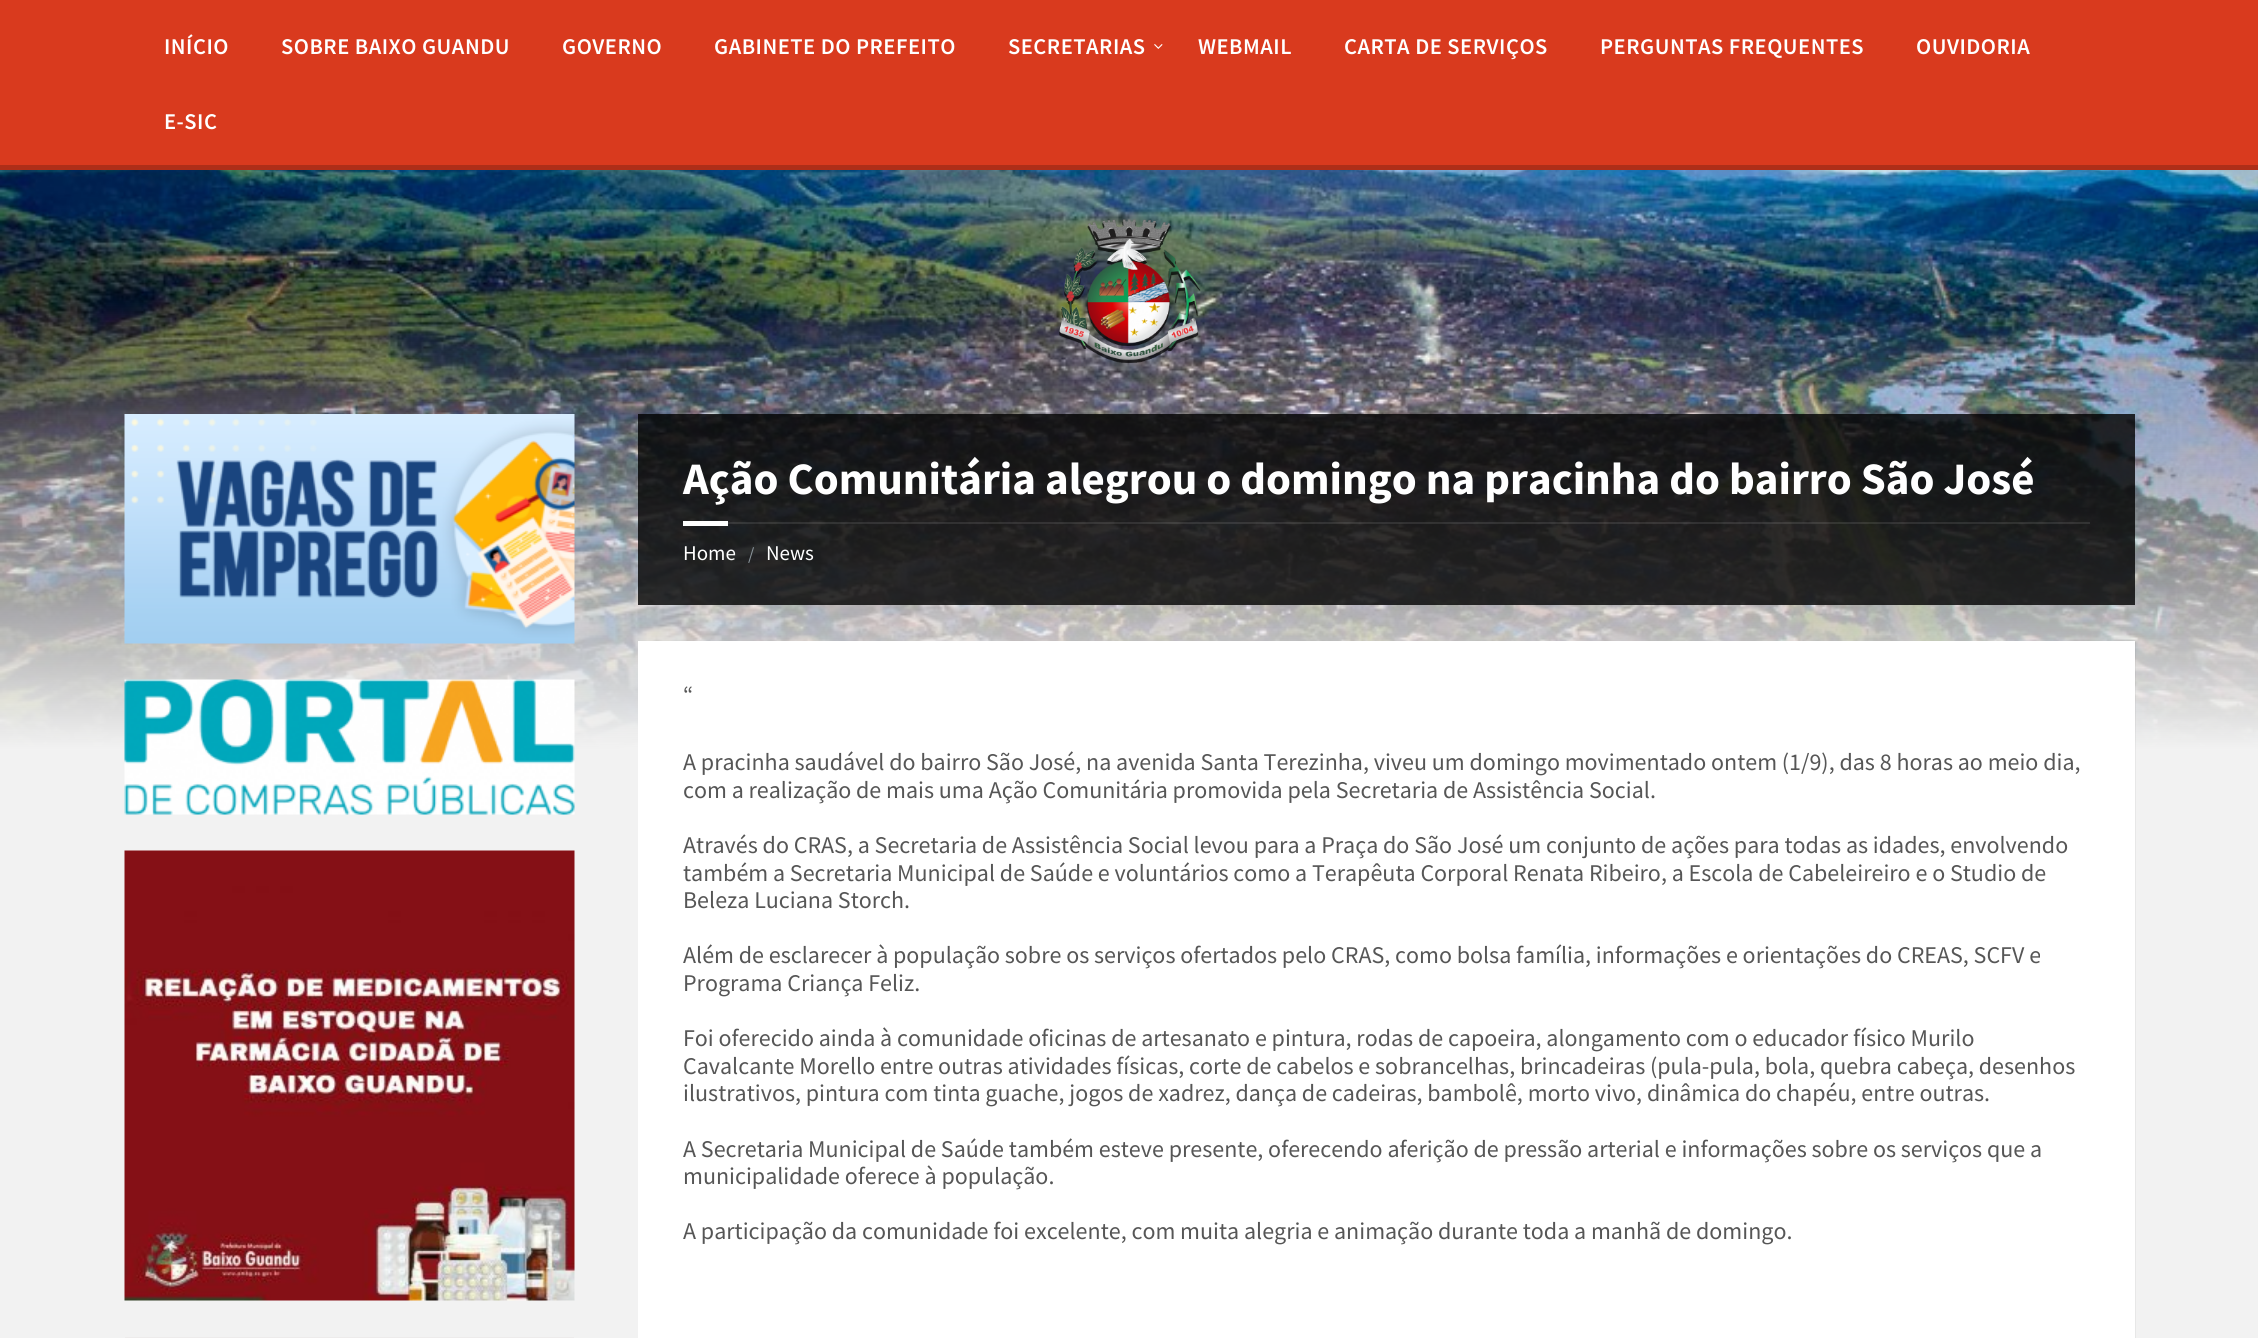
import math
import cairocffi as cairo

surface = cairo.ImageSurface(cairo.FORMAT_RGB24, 2258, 1338)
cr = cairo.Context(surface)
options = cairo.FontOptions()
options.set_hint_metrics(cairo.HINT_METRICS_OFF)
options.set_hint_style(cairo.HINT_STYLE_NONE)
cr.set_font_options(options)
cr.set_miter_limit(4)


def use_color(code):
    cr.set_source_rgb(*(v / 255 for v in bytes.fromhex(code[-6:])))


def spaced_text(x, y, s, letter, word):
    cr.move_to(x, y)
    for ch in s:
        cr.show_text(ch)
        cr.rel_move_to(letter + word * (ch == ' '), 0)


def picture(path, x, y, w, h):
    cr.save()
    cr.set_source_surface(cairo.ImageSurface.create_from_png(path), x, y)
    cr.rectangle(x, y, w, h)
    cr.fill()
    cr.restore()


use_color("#f2f2f2")
cr.paint()
use_color("#d93a1e")
cr.rectangle(0, 0, 2258, 165)
cr.fill()
use_color("#ae2e18")
cr.rectangle(0, 165, 2258, 5)
cr.fill()
cr.select_font_face("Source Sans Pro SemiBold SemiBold")
cr.set_font_size(22.5)
use_color("#ffffff")
spaced_text(164, 54, "INÍCIO", 0.5, 0)
spaced_text(281, 54, "SOBRE BAIXO GUANDU", 0.5, 0)
spaced_text(562, 54, "GOVERNO", 0.5, 0)
spaced_text(714, 54, "GABINETE DO PREFEITO", 0.5, 0)
spaced_text(1008, 54, "SECRETARIAS", 0.5, 0)
picture("img1.png", 1154, 44, 9, 5)
spaced_text(1198, 54, "WEBMAIL", 0.5, 0)
spaced_text(1344, 54, "CARTA DE SERVIÇOS", 0.5, 0)
spaced_text(1600, 54, "PERGUNTAS FREQUENTES", 0.5, 0)
spaced_text(1916, 54, "OUVIDORIA", 0.5, 0)
spaced_text(164, 129, "E-SIC", 0.5, 0)
picture("img3.png", 0, 170, 2258, 580)
picture("img2.png", 1059, 219, 142, 144)
picture("img4.png", 124, 414, 451, 230)
picture("img5.png", 124, 679, 451, 136)
picture("img6.png", 124, 850, 451, 451)
use_color("#edebeb")
cr.rectangle(125, 1337, 449, 1)
cr.fill()
cr.set_source_rgba(0, 0, 0, 0.8)
cr.rectangle(638, 414, 1497, 191)
cr.fill()
cr.select_font_face("Source Sans Pro", cairo.FONT_SLANT_NORMAL, cairo.FONT_WEIGHT_BOLD)
cr.set_font_size(45)
use_color("#ffffff")
cr.move_to(683, 494)
cr.show_text("Ação Comunitária alegrou o domingo na pracinha do bairro São José")
cr.set_source_rgba(1, 1, 1, 0.1)
cr.rectangle(728, 522, 1362, 2)
cr.fill()
use_color("#ffffff")
cr.rectangle(683, 521, 45, 5)
cr.fill()
cr.select_font_face("Source Sans Pro")
cr.set_font_size(21)
cr.move_to(683, 560)
cr.show_text("Home")
cr.set_font_size(18)
use_color("#8a949b")
cr.move_to(748, 560)
cr.show_text("/")
cr.set_font_size(21)
use_color("#ffffff")
cr.move_to(766, 560)
cr.show_text("News")
cr.set_source_rgba(0, 0, 0, 0.05)
cr.new_path()
cr.move_to(639, 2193)
cr.line_to(639, 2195)
cr.line_to(2136, 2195)
cr.line_to(2136, 642)
cr.line_to(2134, 642)
cr.line_to(2134, 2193)
cr.close_path()
cr.fill()
use_color("#ffffff")
cr.rectangle(638, 641, 1497, 697)
cr.fill()
cr.set_font_size(24)
use_color("#565656")
cr.move_to(683, 703)
cr.show_text("“")
cr.move_to(683, 770)
cr.show_text("A pracinha saudável do bairro São José, na avenida Santa Terezinha, viveu um domingo movimentado ontem (1/9), das 8 horas ao meio dia,")
cr.move_to(683, 798)
cr.show_text("com a realização de mais uma Ação Comunitária promovida pela Secretaria de Assistência Social.")
cr.move_to(683, 853)
cr.show_text("Através do CRAS, a Secretaria de Assistência Social levou para a Praça do São José um conjunto de ações para todas as idades, envolvendo")
cr.move_to(683, 881)
cr.show_text("também a Secretaria Municipal de Saúde e voluntários como a Terapêuta Corporal Renata Ribeiro, a Escola de Cabeleireiro e o Studio de")
cr.move_to(683, 908)
cr.show_text("Beleza Luciana Storch.")
cr.move_to(683, 963)
cr.show_text("Além de esclarecer à população sobre os serviços ofertados pelo CRAS, como bolsa família, informações e orientações do CREAS, SCFV e")
cr.move_to(683, 991)
cr.show_text("Programa Criança Feliz.")
cr.move_to(683, 1046)
cr.show_text("Foi oferecido ainda à comunidade oficinas de artesanato e pintura, rodas de capoeira, alongamento com o educador físico Murilo")
cr.move_to(683, 1074)
cr.show_text("Cavalcante Morello entre outras atividades físicas, corte de cabelos e sobrancelhas, brincadeiras (pula-pula, bola, quebra cabeça, desenhos")
cr.move_to(683, 1101)
cr.show_text("ilustrativos, pintura com tinta guache, jogos de xadrez, dança de cadeiras, bambolê, morto vivo, dinâmica do chapéu, entre outras.")
cr.move_to(683, 1157)
cr.show_text("A Secretaria Municipal de Saúde também esteve presente, oferecendo aferição de pressão arterial e informações sobre os serviços que a")
cr.move_to(683, 1184)
cr.show_text("municipalidade oferece à população.")
cr.move_to(683, 1239)
cr.show_text("A participação da comunidade foi excelente, com muita alegria e animação durante toda a manhã de domingo.")
surface.write_to_png("result.png")
